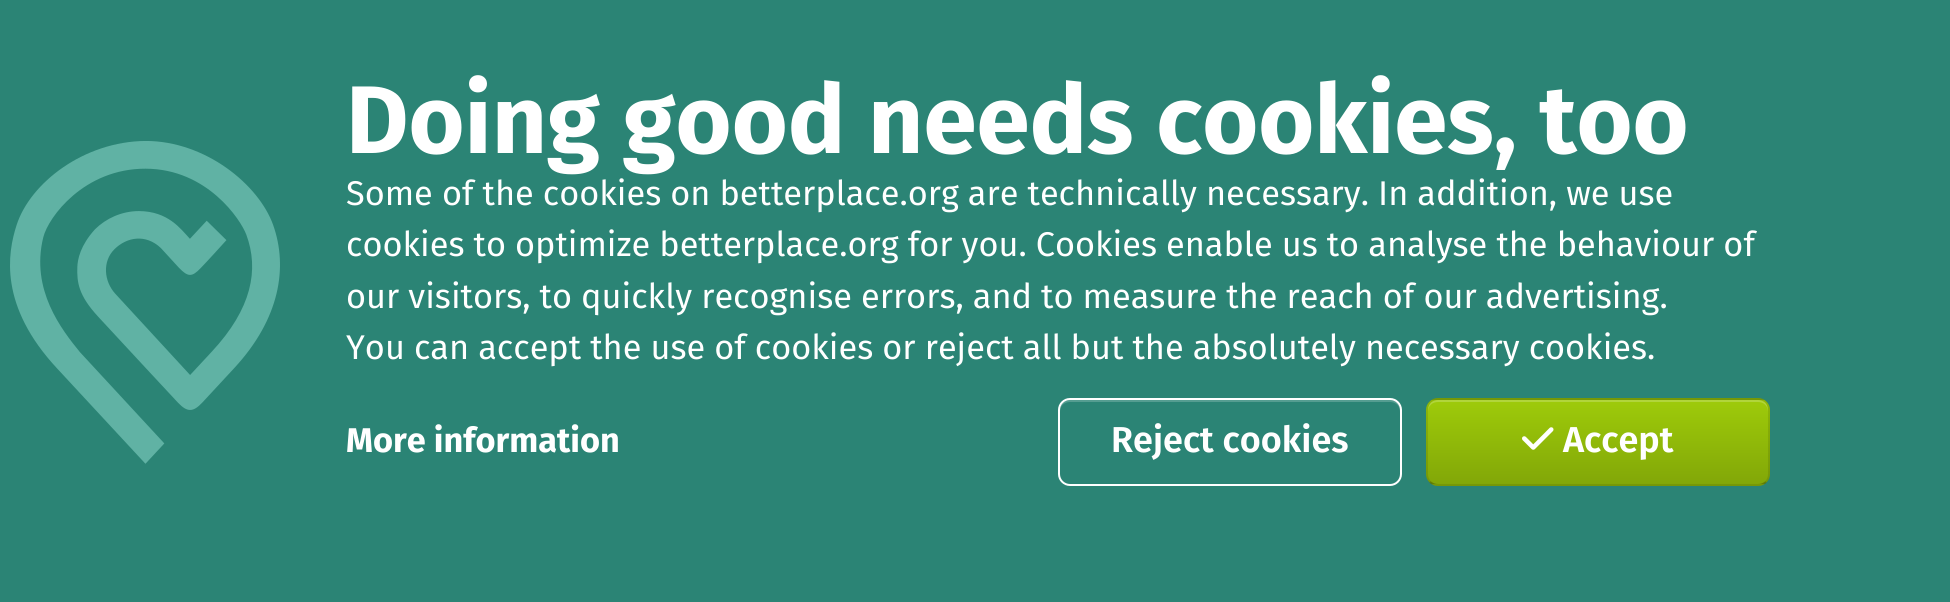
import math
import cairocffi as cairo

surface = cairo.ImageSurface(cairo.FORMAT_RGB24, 1950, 602)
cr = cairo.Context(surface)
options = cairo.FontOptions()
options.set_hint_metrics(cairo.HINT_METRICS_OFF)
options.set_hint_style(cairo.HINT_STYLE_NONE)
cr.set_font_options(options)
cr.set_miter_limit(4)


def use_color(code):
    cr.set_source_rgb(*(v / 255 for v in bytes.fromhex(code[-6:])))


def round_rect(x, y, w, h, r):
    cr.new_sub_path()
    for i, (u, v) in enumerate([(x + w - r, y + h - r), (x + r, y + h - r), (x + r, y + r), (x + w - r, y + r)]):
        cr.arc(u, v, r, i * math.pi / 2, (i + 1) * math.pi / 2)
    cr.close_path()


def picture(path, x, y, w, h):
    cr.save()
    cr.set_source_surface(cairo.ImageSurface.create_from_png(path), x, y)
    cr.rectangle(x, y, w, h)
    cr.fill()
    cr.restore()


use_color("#2b8475")
cr.paint()
picture("img1.png", 10, 141, 270, 323)
cr.select_font_face("Fira Sans", cairo.FONT_SLANT_NORMAL, cairo.FONT_WEIGHT_BOLD)
cr.set_font_size(96)
use_color("#ffffff")
cr.move_to(346, 153)
cr.show_text("Doing good needs cookies, too")
cr.select_font_face("Fira Sans")
cr.set_font_size(34.3)
cr.move_to(346, 205)
cr.show_text("Some of the cookies on betterplace.org are technically necessary. In addition, we use")
cr.move_to(346, 256)
cr.show_text("cookies to optimize betterplace.org for you. Cookies enable us to analyse the behaviour of")
cr.move_to(346, 308)
cr.show_text("our visitors, to quickly recognise errors, and to measure the reach of our advertising.")
cr.move_to(346, 359)
cr.show_text("You can accept the use of cookies or reject all but the absolutely necessary cookies.")
cr.select_font_face("Fira Sans", cairo.FONT_SLANT_NORMAL, cairo.FONT_WEIGHT_BOLD)
cr.move_to(346, 452)
cr.show_text("More information")
use_color("#559d91")
cr.new_path()
cr.move_to(1070, 402)
cr.line_to(1390, 402)
cr.curve_to(1396, 402, 1400, 406, 1400, 412)
cr.line_to(1400, 410)
cr.curve_to(1400, 404, 1396, 400, 1390, 400)
cr.line_to(1070, 400)
cr.curve_to(1064, 400, 1060, 404, 1060, 410)
cr.line_to(1060, 412)
cr.curve_to(1060, 406, 1064, 402, 1070, 402)
cr.close_path()
cr.fill()
round_rect(1059, 399, 342, 86, 11)
use_color("#ffffff")
cr.stroke()
cr.select_font_face("Fira Sans SemiBold")
cr.set_font_size(36)
cr.move_to(1111, 452)
cr.show_text("Reject cookies")
cr.save()
round_rect(1426, 398, 344, 88, 12)
cr.clip()
gradient = cairo.LinearGradient(1598, 316, 1598, 400)
gradient.add_color_stop_rgba(0, 0.62, 0.796, 0.039, 1)
gradient.add_color_stop_rgba(1, 0.51, 0.655, 0.031, 1)
cr.set_source(gradient)
cr.rectangle(1426, 398, 344, 2)
cr.fill()
gradient = cairo.LinearGradient(1598, 400, 1598, 484)
gradient.add_color_stop_rgba(0, 0.62, 0.796, 0.039, 1)
gradient.add_color_stop_rgba(1, 0.51, 0.655, 0.031, 1)
cr.set_source(gradient)
cr.rectangle(1426, 400, 344, 84)
cr.fill()
gradient = cairo.LinearGradient(1598, 484, 1598, 568)
gradient.add_color_stop_rgba(0, 0.62, 0.796, 0.039, 1)
gradient.add_color_stop_rgba(1, 0.51, 0.655, 0.031, 1)
cr.set_source(gradient)
cr.rectangle(1426, 484, 344, 2)
cr.fill()
cr.restore()
cr.set_source_rgba(1, 1, 1, 0.2)
cr.new_path()
cr.move_to(1438, 402)
cr.line_to(1758, 402)
cr.curve_to(1764, 402, 1768, 406, 1768, 412)
cr.line_to(1768, 410)
cr.curve_to(1768, 404, 1764, 400, 1758, 400)
cr.line_to(1438, 400)
cr.curve_to(1432, 400, 1428, 404, 1428, 410)
cr.line_to(1428, 412)
cr.curve_to(1428, 406, 1432, 402, 1438, 402)
cr.close_path()
cr.fill()
cr.new_path()
cr.move_to(1766, 482)
cr.curve_to(1763.5, 484, 1761, 485, 1758, 485)
cr.line_to(1438, 485)
cr.curve_to(1435, 485, 1432.5, 484, 1430, 482)
cr.set_source_rgba(0, 0, 0, 0.25)
cr.stroke()
cr.new_path()
cr.move_to(1430, 482)
cr.curve_to(1428, 479.5, 1427, 477, 1427, 474)
cr.line_to(1427, 410)
cr.curve_to(1427, 407, 1428, 404.5, 1430, 402)
cr.curve_to(1432.5, 400, 1435, 399, 1438, 399)
cr.line_to(1758, 399)
cr.curve_to(1761, 399, 1763.5, 400, 1766, 402)
cr.curve_to(1768, 404.5, 1769, 407, 1769, 410)
cr.line_to(1769, 474)
cr.curve_to(1769, 477, 1768, 479.5, 1766, 482)
cr.set_source_rgba(0, 0, 0, 0.1)
cr.stroke()
picture("img2.png", 1522, 427, 32, 23)
use_color("#ffffff")
cr.move_to(1563, 452)
cr.show_text("Accept")
surface.write_to_png("result.png")
